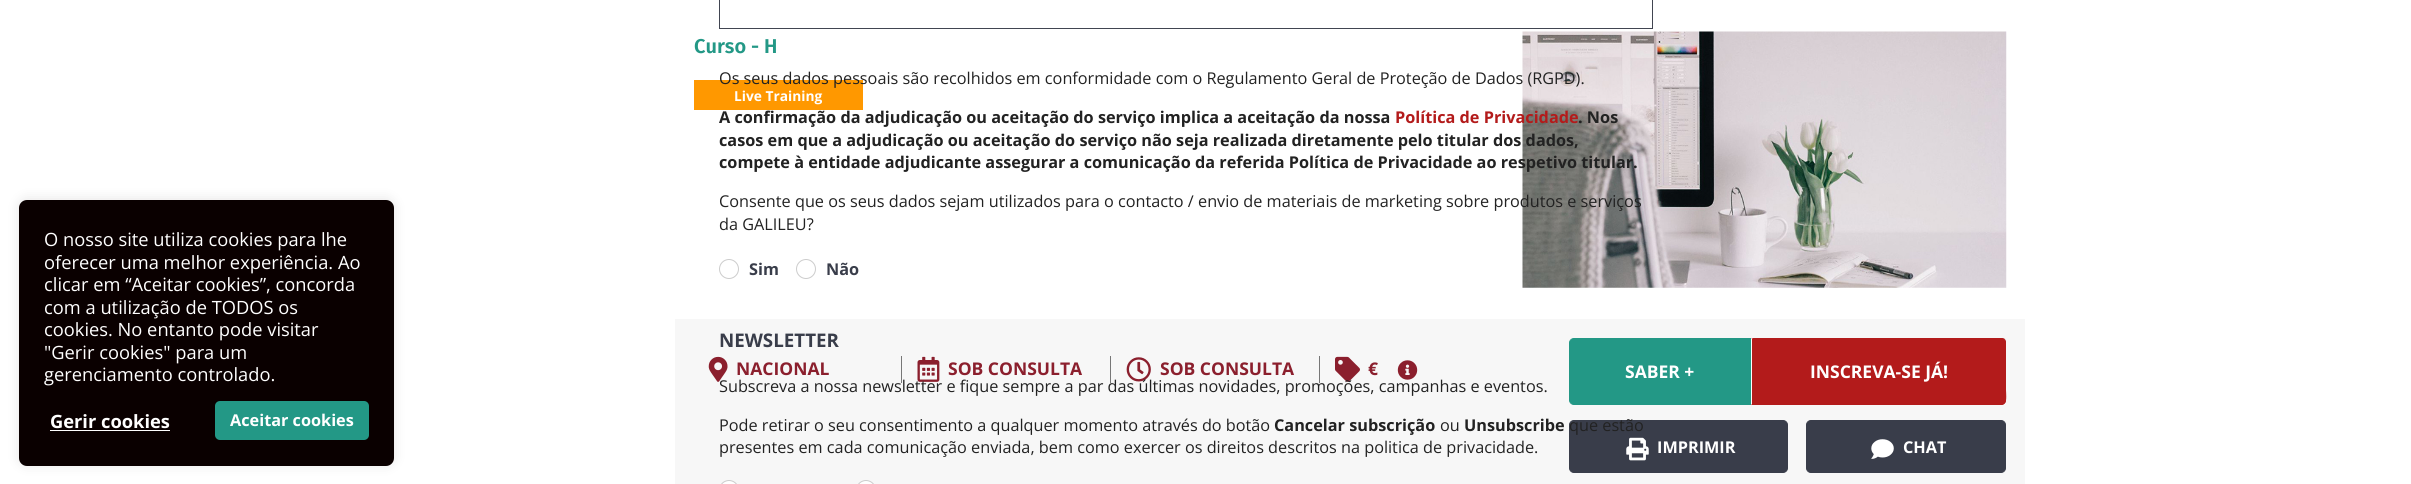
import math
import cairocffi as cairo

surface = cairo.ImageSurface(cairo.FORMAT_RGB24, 2411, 484)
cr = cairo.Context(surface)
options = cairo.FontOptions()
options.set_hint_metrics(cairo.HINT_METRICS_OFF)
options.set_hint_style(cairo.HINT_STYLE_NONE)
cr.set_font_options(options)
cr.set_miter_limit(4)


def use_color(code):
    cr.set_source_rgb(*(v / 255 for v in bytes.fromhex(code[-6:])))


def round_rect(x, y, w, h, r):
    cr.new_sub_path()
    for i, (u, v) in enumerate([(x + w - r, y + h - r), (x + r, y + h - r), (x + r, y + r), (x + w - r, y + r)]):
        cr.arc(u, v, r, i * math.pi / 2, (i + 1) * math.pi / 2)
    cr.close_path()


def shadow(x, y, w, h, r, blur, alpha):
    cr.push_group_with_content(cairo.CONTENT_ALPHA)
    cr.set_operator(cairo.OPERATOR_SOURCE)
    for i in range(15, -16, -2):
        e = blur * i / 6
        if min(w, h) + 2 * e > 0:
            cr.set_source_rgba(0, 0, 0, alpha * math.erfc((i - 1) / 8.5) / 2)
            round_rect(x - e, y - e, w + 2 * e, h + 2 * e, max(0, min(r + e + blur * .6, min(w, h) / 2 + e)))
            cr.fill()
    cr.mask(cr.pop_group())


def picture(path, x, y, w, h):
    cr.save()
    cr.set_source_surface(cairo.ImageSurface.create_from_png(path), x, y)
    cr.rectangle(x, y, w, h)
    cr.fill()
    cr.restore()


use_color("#ffffff")
cr.paint()
use_color("#acabab")
shadow(19, 199, 375, 266, 8, 6, 0.3)
use_color("#0a0000")
round_rect(19, 200, 375, 266, 8)
cr.fill()
cr.select_font_face("Open Sans")
cr.set_font_size(18.3)
use_color("#ffffff")
cr.move_to(44, 246)
cr.show_text("O nosso site utiliza cookies para lhe")
cr.move_to(44, 269)
cr.show_text("oferecer uma melhor experiência. Ao")
cr.move_to(44, 291)
cr.show_text("clicar em “Aceitar cookies”, concorda")
cr.move_to(44, 314)
cr.show_text("com a utilização de TODOS os")
cr.move_to(44, 336)
cr.show_text("cookies. No entanto pode visitar")
cr.move_to(44, 359)
cr.show_text("\"Gerir cookies\" para um")
cr.move_to(44, 381)
cr.show_text("gerenciamento controlado.")
cr.select_font_face("Open Sans", cairo.FONT_SLANT_NORMAL, cairo.FONT_WEIGHT_BOLD)
cr.move_to(50, 428)
cr.show_text("Gerir cookies")
cr.rectangle(50, 430, 120, 1)
cr.fill()
use_color("#239886")
round_rect(215, 401, 154, 39, 5)
cr.fill()
cr.set_font_size(16.25)
use_color("#ffffff")
cr.move_to(230, 426)
cr.show_text("Aceitar cookies")
cr.select_font_face("Fira Sans SemiBold")
cr.set_font_size(20)
use_color("#239886")
cr.move_to(694, 53)
cr.show_text("Curso - H")
use_color("#ff9800")
cr.rectangle(694, 80, 169, 30)
cr.fill()
cr.select_font_face("Open Sans", cairo.FONT_SLANT_NORMAL, cairo.FONT_WEIGHT_BOLD)
cr.set_font_size(13.75)
use_color("#ffffff")
cr.move_to(734, 101)
cr.show_text("Live Training")
picture("img1.png", 1522, 31, 485, 257)
use_color("#f7f7f7")
cr.rectangle(675, 319, 1350, 165)
cr.fill()
use_color("#777777")
cr.rectangle(901, 356, 1, 27)
cr.fill()
picture("img2.png", 708, 356, 20, 26)
cr.set_font_size(17.5)
use_color("#8b1f2d")
cr.move_to(736, 375)
cr.show_text("NACIONAL")
use_color("#777777")
cr.rectangle(1110, 356, 1, 27)
cr.fill()
picture("img3.png", 917, 356, 23, 26)
use_color("#8b1f2d")
cr.move_to(948, 375)
cr.show_text("SOB CONSULTA")
use_color("#777777")
cr.rectangle(1319, 356, 1, 27)
cr.fill()
picture("img4.png", 1126, 357, 25, 25)
use_color("#8b1f2d")
cr.move_to(1160, 375)
cr.show_text("SOB CONSULTA")
picture("img5.png", 1335, 356, 25, 26)
cr.move_to(1368, 375)
cr.show_text("€")
picture("img6.png", 1397, 360, 21, 20)
use_color("#239886")
cr.new_path()
cr.move_to(1574, 338.5)
cr.line_to(1750.5, 338.5)
cr.line_to(1750.5, 404.5)
cr.line_to(1574, 404.5)
cr.curve_to(1571.5, 404.5, 1569.5, 402.5, 1569.5, 400)
cr.line_to(1569.5, 343)
cr.curve_to(1569.5, 340.5, 1571.5, 338.5, 1574, 338.5)
cr.close_path()
cr.fill_preserve()
cr.set_line_width(1)
cr.stroke()
use_color("#ffffff")
cr.move_to(1625, 378)
cr.show_text("SABER +")
use_color("#b31b1b")
cr.new_path()
cr.move_to(1751, 338)
cr.line_to(2001, 338)
cr.curve_to(2004, 338, 2006, 340, 2006, 343)
cr.line_to(2006, 400)
cr.curve_to(2006, 403, 2004, 405, 2001, 405)
cr.line_to(1751, 405)
cr.close_path()
cr.fill()
cr.new_path()
cr.move_to(2005, 339)
cr.line_to(2002, 338)
cr.line_to(1752, 338)
cr.line_to(1753, 339)
cr.line_to(2001, 339)
cr.line_to(2004, 340)
cr.close_path()
cr.fill()
cr.new_path()
cr.move_to(2005, 339)
cr.line_to(2006, 342)
cr.line_to(2006, 390)
cr.curve_to(2006, 392, 2007, 401, 2005, 403)
cr.line_to(2004, 403)
cr.curve_to(2005, 402, 2005, 401, 2005, 400)
cr.line_to(2005, 342)
cr.curve_to(2005, 341, 2005, 340, 2004, 340)
cr.close_path()
cr.fill()
cr.new_path()
cr.move_to(1751, 405)
cr.line_to(2001, 405)
cr.curve_to(2003, 405, 2004, 404, 2005, 403)
cr.line_to(2004, 403)
cr.line_to(2001, 404)
cr.line_to(1752, 404)
cr.close_path()
cr.fill()
use_color("#ffffff")
cr.new_path()
cr.move_to(1752, 339)
cr.line_to(1753, 339)
cr.line_to(1751, 338)
cr.line_to(1751, 405)
cr.line_to(1752, 404)
cr.close_path()
cr.fill()
cr.move_to(1810, 378)
cr.show_text("INSCREVA-SE JÁ!")
use_color("#393d4a")
round_rect(1569.5, 420.5, 218, 52, 4.5)
cr.fill_preserve()
cr.stroke()
picture("img7.png", 1626, 437, 23, 24)
cr.set_font_size(16.25)
use_color("#ffffff")
cr.move_to(1657, 453)
cr.show_text("IMPRIMIR")
use_color("#393d4a")
round_rect(1806.5, 420.5, 199, 52, 4.5)
cr.fill_preserve()
cr.stroke()
picture("img8.png", 1871, 439, 23, 20)
use_color("#ffffff")
cr.move_to(1903, 453)
cr.show_text("CHAT")
cr.rectangle(719.5, -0.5, 933, 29)
use_color("#414551")
cr.stroke()
cr.select_font_face("Open Sans")
use_color("#222222")
cr.move_to(719, 84)
cr.show_text("Os seus dados pessoais são recolhidos em conformidade com o Regulamento Geral de Proteção de Dados (RGPD).")
cr.select_font_face("Open Sans", cairo.FONT_SLANT_NORMAL, cairo.FONT_WEIGHT_BOLD)
cr.move_to(719, 123)
cr.show_text("A confirmação da adjudicação ou aceitação do serviço implica a aceitação da nossa")
use_color("#b31b1b")
cr.move_to(1395, 123)
cr.show_text("Política de Privacidade")
use_color("#222222")
cr.move_to(1578, 123)
cr.show_text(". Nos")
cr.move_to(719, 146)
cr.show_text("casos em que a adjudicação ou aceitação do serviço não seja realizada diretamente pelo titular dos dados,")
cr.move_to(719, 168)
cr.show_text("compete à entidade adjudicante assegurar a comunicação da referida Política de Privacidade ao respetivo titular.")
cr.select_font_face("Open Sans")
cr.move_to(719, 207)
cr.show_text("Consente que os seus dados sejam utilizados para o contacto / envio de materiais de marketing sobre produtos e serviços")
cr.move_to(719, 230)
cr.show_text("da GALILEU?")
cr.new_path()
cr.arc(729, 269, 9.5, 0, 2 * math.pi)
use_color("#cccccc")
cr.stroke()
cr.select_font_face("Open Sans", cairo.FONT_SLANT_NORMAL, cairo.FONT_WEIGHT_BOLD)
use_color("#393d4a")
cr.move_to(749, 275)
cr.show_text("Sim")
cr.new_path()
cr.arc(806, 269, 9.5, 0, 2 * math.pi)
use_color("#cccccc")
cr.stroke()
use_color("#393d4a")
cr.move_to(826, 275)
cr.show_text("Não")
cr.set_font_size(18.75)
cr.move_to(719, 347)
cr.show_text("NEWSLETTER")
cr.select_font_face("Open Sans")
cr.set_font_size(16.25)
use_color("#222222")
cr.move_to(719, 392)
cr.show_text("Subscreva a nossa newsletter e fique sempre a par das últimas novidades, promoções, campanhas e eventos.")
cr.move_to(719, 431)
cr.show_text("Pode retirar o seu consentimento a qualquer momento através do botão")
cr.select_font_face("Open Sans", cairo.FONT_SLANT_NORMAL, cairo.FONT_WEIGHT_BOLD)
cr.move_to(1274, 431)
cr.show_text("Cancelar subscrição")
cr.select_font_face("Open Sans")
cr.move_to(1440, 431)
cr.show_text("ou")
cr.select_font_face("Open Sans", cairo.FONT_SLANT_NORMAL, cairo.FONT_WEIGHT_BOLD)
cr.move_to(1464, 431)
cr.show_text("Unsubscribe")
cr.select_font_face("Open Sans")
cr.move_to(1569, 431)
cr.show_text("que estão")
cr.move_to(719, 453)
cr.show_text("presentes em cada comunicação enviada, bem como exercer os direitos descritos na politica de privacidade.")
use_color("#ffffff")
round_rect(719.5, 480.5, 19, 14, 9.5)
cr.fill_preserve()
use_color("#cccccc")
cr.stroke()
use_color("#ffffff")
round_rect(856.5, 480.5, 19, 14, 9.5)
cr.fill_preserve()
use_color("#cccccc")
cr.stroke()
surface.write_to_png("result.png")
